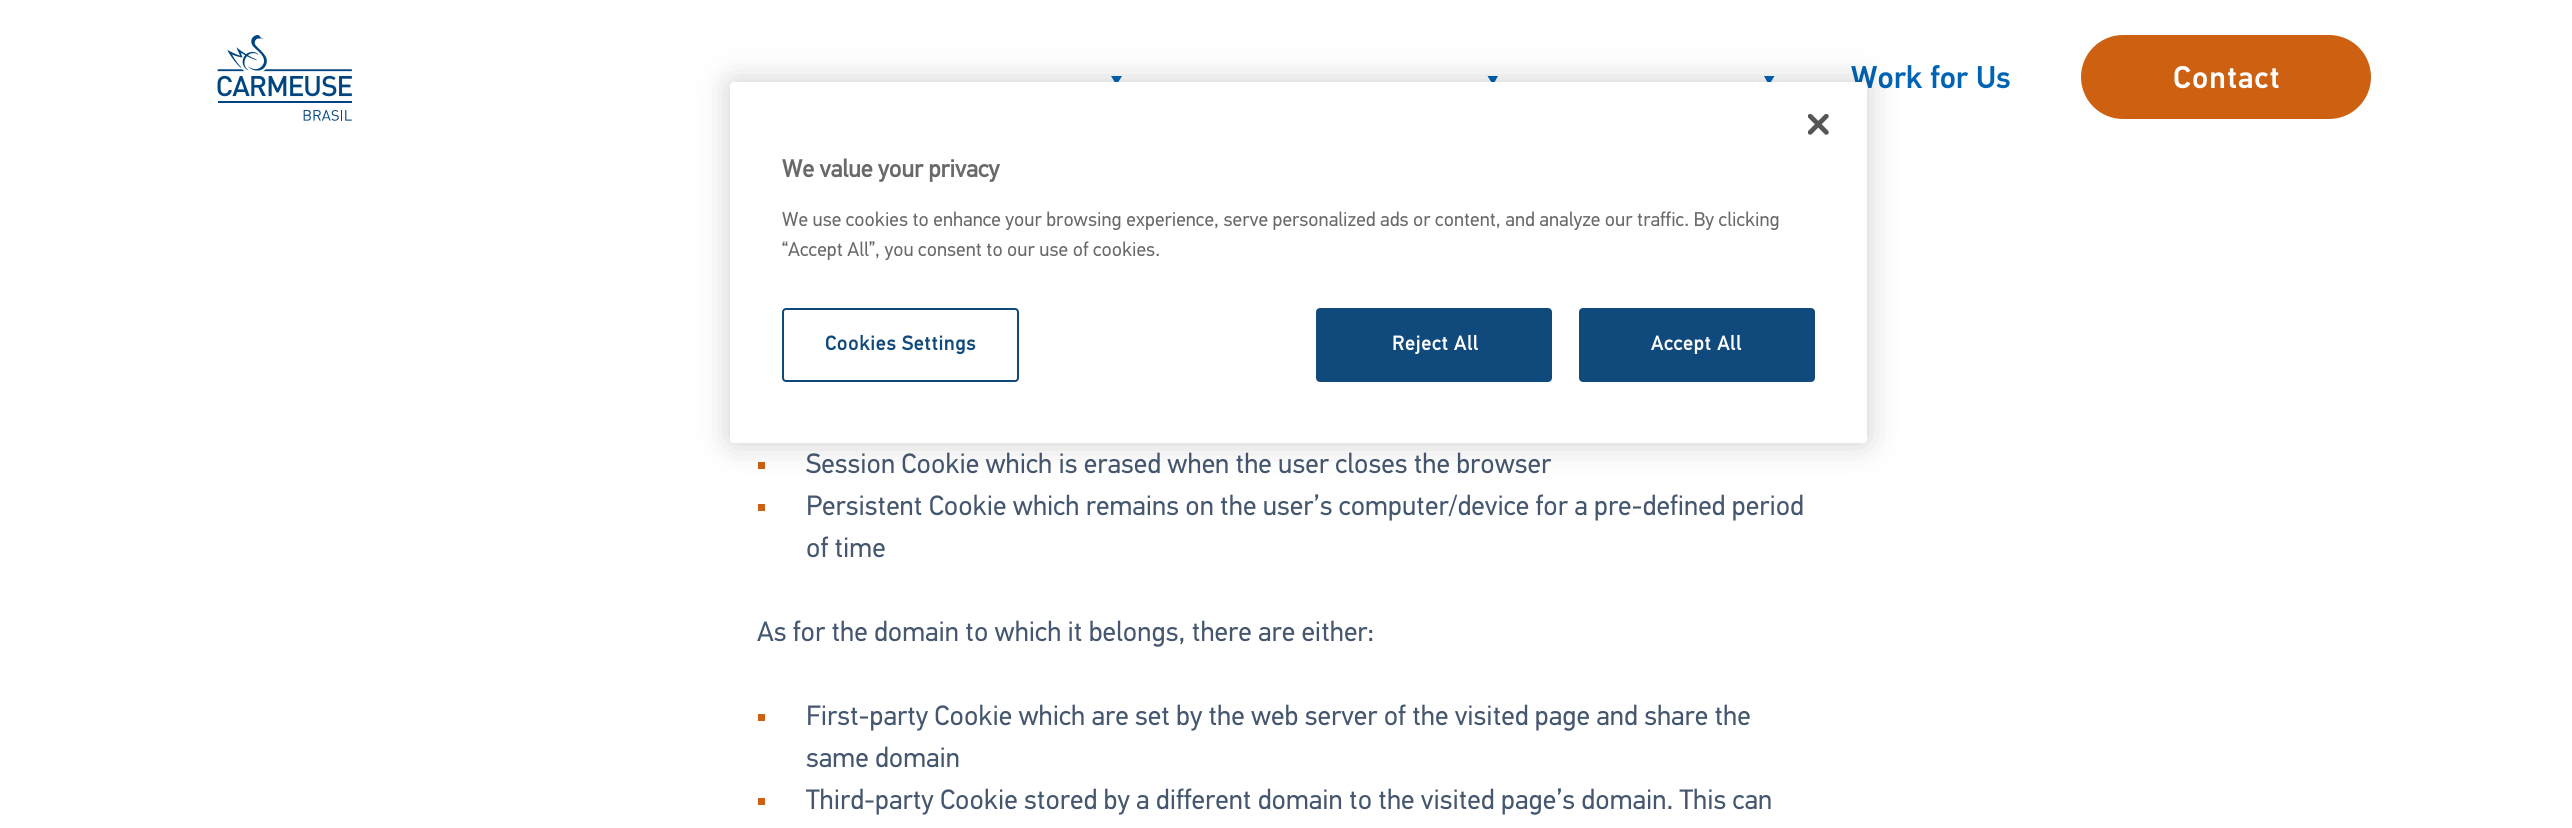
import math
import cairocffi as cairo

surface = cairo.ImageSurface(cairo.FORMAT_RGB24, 2572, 828)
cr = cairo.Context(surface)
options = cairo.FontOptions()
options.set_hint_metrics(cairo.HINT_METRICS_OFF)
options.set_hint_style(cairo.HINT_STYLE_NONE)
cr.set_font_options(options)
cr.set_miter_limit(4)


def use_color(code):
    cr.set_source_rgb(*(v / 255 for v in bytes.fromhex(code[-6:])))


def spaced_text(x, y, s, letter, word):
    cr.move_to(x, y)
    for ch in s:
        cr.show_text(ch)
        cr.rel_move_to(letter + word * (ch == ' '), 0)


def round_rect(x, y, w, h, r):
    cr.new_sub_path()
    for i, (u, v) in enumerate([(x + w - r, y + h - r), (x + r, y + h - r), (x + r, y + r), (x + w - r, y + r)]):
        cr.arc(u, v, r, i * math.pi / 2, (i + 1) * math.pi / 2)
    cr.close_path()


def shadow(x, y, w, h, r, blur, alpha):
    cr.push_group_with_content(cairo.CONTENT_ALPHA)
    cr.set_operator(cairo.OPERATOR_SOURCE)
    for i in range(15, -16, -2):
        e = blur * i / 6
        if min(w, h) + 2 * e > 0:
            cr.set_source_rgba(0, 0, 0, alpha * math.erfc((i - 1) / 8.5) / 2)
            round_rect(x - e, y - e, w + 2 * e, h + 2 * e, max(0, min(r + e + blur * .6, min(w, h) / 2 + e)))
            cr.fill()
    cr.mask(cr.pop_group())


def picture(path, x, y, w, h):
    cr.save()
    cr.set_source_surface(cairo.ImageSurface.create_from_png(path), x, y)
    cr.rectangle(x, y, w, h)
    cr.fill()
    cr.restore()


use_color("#ffffff")
cr.paint()
picture("img1.png", 217, 35, 135, 86)
use_color("#0063b4")
cr.new_path()
cr.move_to(1116.5, 85)
cr.line_to(1111, 76)
cr.line_to(1122, 76)
cr.close_path()
cr.fill()
cr.new_path()
cr.move_to(1493, 85)
cr.line_to(1487.5, 76)
cr.line_to(1498, 76)
cr.close_path()
cr.fill()
cr.new_path()
cr.move_to(1769, 85)
cr.line_to(1764, 76)
cr.line_to(1774.5, 76)
cr.close_path()
cr.fill()
cr.select_font_face("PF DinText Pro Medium")
cr.set_font_size(31.5)
cr.move_to(1851, 88)
cr.show_text("Work for Us")
use_color("#cd6011")
round_rect(2081, 35, 290, 84, 42)
cr.fill()
use_color("#ffffff")
spaced_text(2173, 88, "Contact", 1, 0)
use_color("#cd6011")
cr.rectangle(758, 462, 7, 7)
cr.fill()
cr.select_font_face("PF DinText Pro")
cr.set_font_size(28)
use_color("#45576f")
cr.move_to(806, 473)
cr.show_text("Session Cookie which is erased when the user closes the browser")
use_color("#cd6011")
cr.rectangle(758, 504, 7, 7)
cr.fill()
use_color("#45576f")
cr.move_to(806, 515)
cr.show_text("Persistent Cookie which remains on the user’s computer/device for a pre-defined period")
cr.move_to(806, 557)
cr.show_text("of time")
cr.move_to(757, 641)
cr.show_text("As for the domain to which it belongs, there are either:")
use_color("#cd6011")
cr.rectangle(758, 714, 7, 7)
cr.fill()
use_color("#45576f")
cr.move_to(806, 725)
cr.show_text("First-party Cookie which are set by the web server of the visited page and share the")
cr.move_to(806, 767)
cr.show_text("same domain")
use_color("#cd6011")
cr.rectangle(758, 798, 7, 7)
cr.fill()
use_color("#45576f")
cr.move_to(806, 809)
cr.show_text("Third-party Cookie stored by a different domain to the visited page’s domain. This can")
use_color("#000000")
shadow(730, 82, 1137, 361, 4, 16, 0.2)
use_color("#ffffff")
round_rect(730, 82, 1137, 361, 4)
cr.fill()
picture("img2.png", 1808, 114, 21, 21)
cr.select_font_face("PF DinText Pro", cairo.FONT_SLANT_NORMAL, cairo.FONT_WEIGHT_BOLD)
cr.set_font_size(24.5)
use_color("#696969")
cr.move_to(782, 177)
cr.show_text("We value your privacy")
cr.select_font_face("PF DinText Pro")
cr.set_font_size(19.92)
cr.move_to(782, 226)
cr.show_text("We use cookies to enhance your browsing experience, serve personalized ads or content, and analyze our traffic. By clicking")
cr.move_to(782, 256)
cr.show_text("“Accept All”, you consent to our use of cookies.")
round_rect(783, 309, 235, 72, 3)
use_color("#10497c")
cr.stroke()
cr.select_font_face("PF DinText Pro", cairo.FONT_SLANT_NORMAL, cairo.FONT_WEIGHT_BOLD)
spaced_text(825, 350, "Cookies Settings", 1, 0)
round_rect(1317, 309, 234, 72, 3)
cr.fill_preserve()
cr.stroke()
use_color("#ffffff")
spaced_text(1392, 350, "Reject All", 1, 0)
use_color("#10497c")
round_rect(1580, 309, 234, 72, 3)
cr.fill_preserve()
cr.stroke()
use_color("#ffffff")
spaced_text(1651, 350, "Accept All", 1, 0)
surface.write_to_png("result.png")
